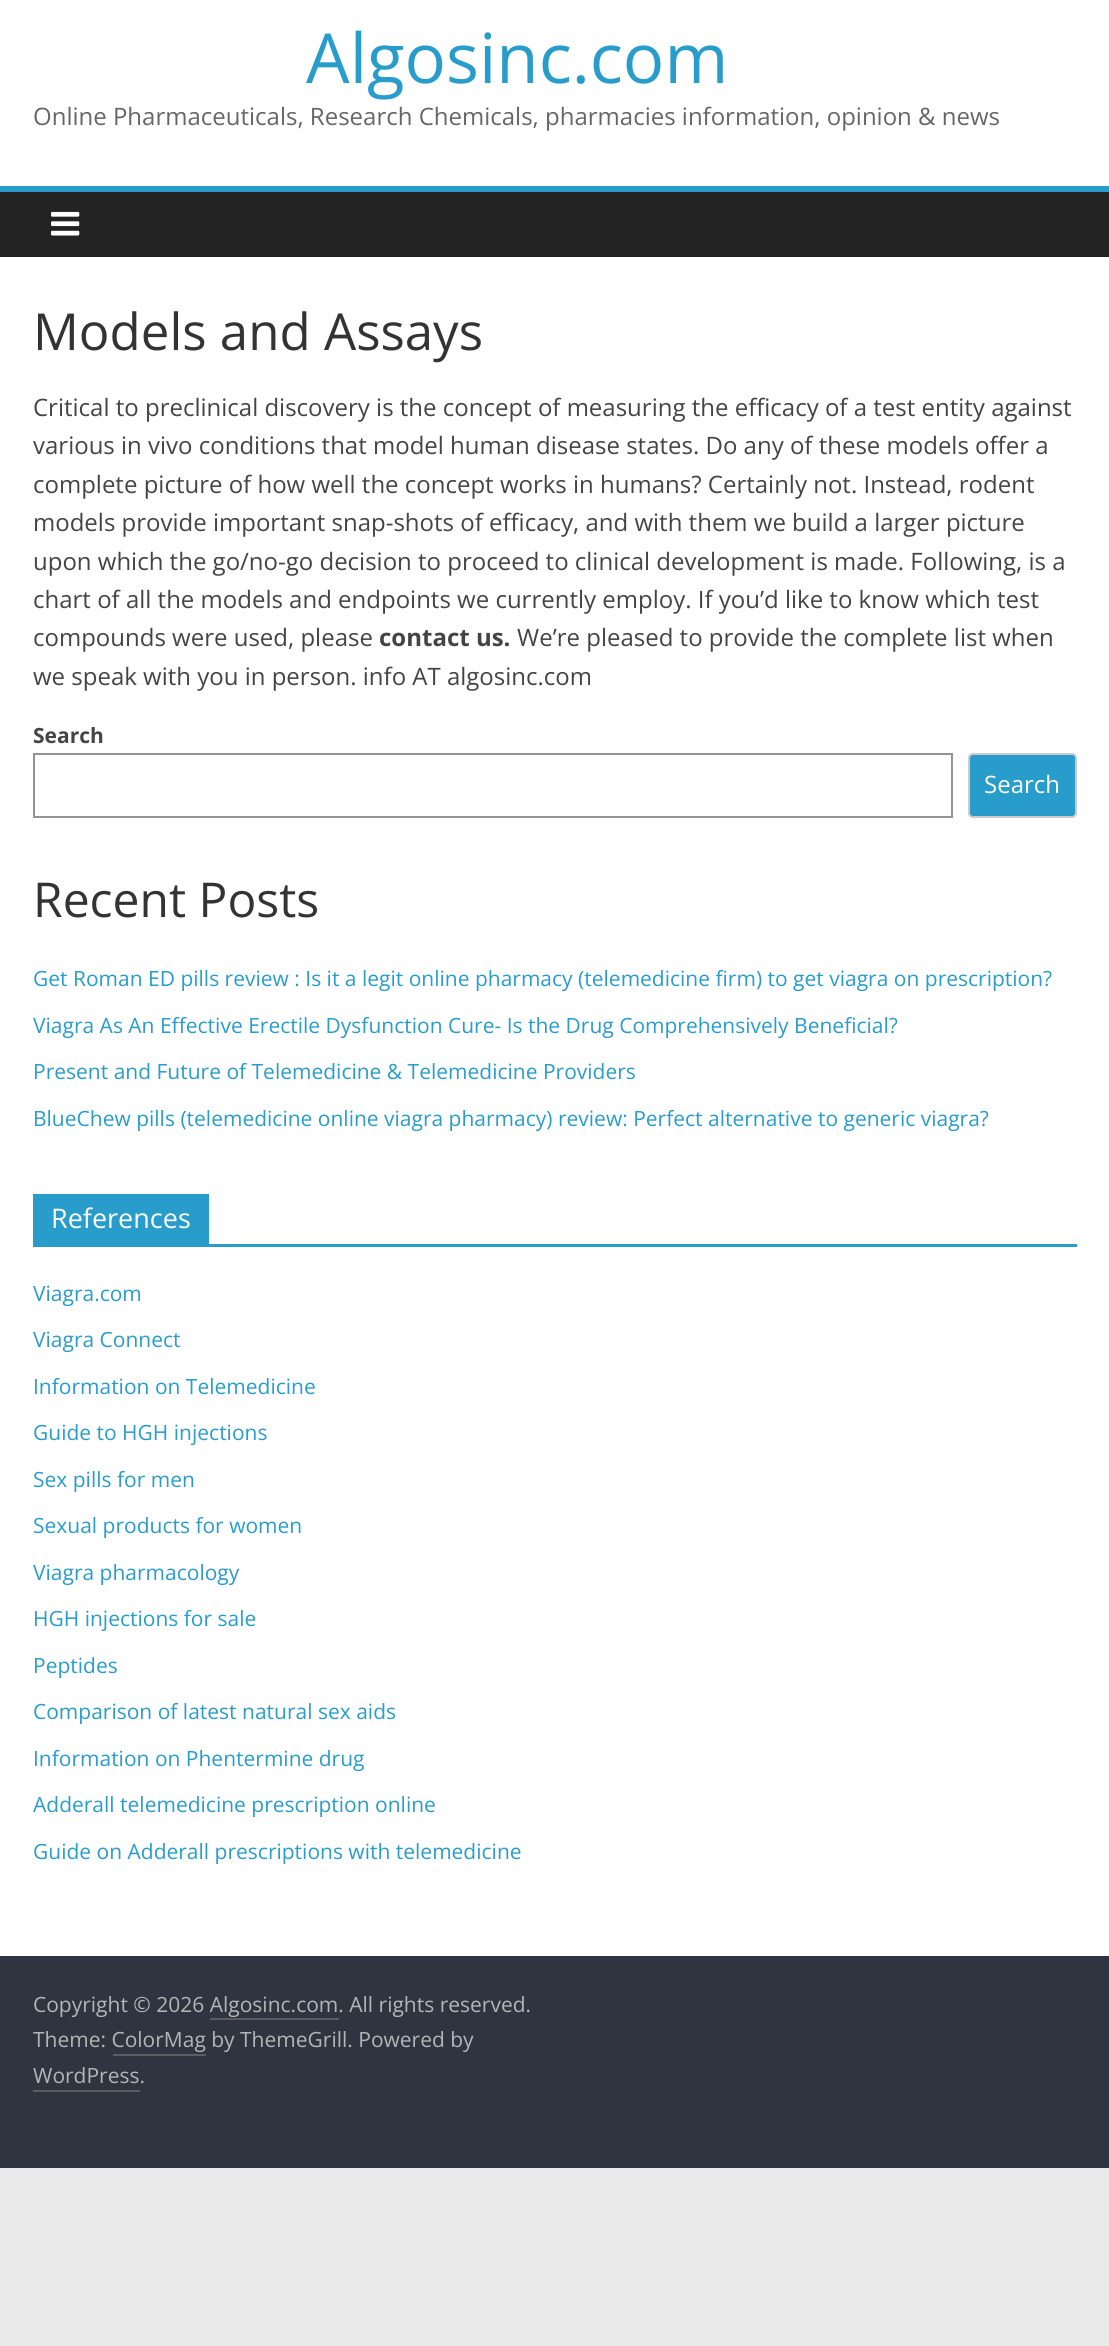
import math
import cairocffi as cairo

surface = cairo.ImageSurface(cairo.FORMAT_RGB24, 1109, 2346)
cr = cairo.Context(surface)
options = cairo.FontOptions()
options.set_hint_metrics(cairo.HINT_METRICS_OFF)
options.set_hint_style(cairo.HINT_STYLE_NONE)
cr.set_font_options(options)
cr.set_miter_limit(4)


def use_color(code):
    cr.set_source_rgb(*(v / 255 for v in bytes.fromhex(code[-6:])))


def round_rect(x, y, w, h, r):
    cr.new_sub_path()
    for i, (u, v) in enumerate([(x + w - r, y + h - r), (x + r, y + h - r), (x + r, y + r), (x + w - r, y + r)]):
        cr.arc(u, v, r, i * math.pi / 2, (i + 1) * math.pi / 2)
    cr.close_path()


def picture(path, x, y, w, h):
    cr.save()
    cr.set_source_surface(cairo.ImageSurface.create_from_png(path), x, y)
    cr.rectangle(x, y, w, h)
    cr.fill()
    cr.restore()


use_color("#eaeaea")
cr.paint()
use_color("#ffffff")
cr.rectangle(0, 0, 1109, 186)
cr.fill()
cr.select_font_face("Open Sans")
cr.set_font_size(69)
use_color("#289dcc")
cr.move_to(306, 83)
cr.show_text("Algosinc.com")
cr.set_font_size(24)
use_color("#666666")
cr.move_to(33, 125)
cr.show_text("Online Pharmaceuticals, Research Chemicals, pharmacies information, opinion & news")
use_color("#232323")
cr.rectangle(0, 192, 1109, 65)
cr.fill()
use_color("#289dcc")
cr.rectangle(0, 186, 1109, 6)
cr.fill()
picture("img1.png", 51, 211, 29, 25)
use_color("#ffffff")
cr.rectangle(0, 257, 1109, 1699)
cr.fill()
cr.set_font_size(51)
use_color("#333333")
cr.move_to(33, 350)
cr.show_text("Models and Assays")
cr.set_font_size(24)
use_color("#444444")
cr.move_to(33, 416)
cr.show_text("Critical to preclinical discovery is the concept of measuring the efficacy of a test entity against")
cr.move_to(33, 454)
cr.show_text("various in vivo conditions that model human disease states. Do any of these models offer a")
cr.move_to(33, 493)
cr.show_text("complete picture of how well the concept works in humans? Certainly not. Instead, rodent")
cr.move_to(33, 531)
cr.show_text("models provide important snap-shots of efficacy, and with them we build a larger picture")
cr.move_to(33, 570)
cr.show_text("upon which the go/no-go decision to proceed to clinical development is made. Following, is a")
cr.move_to(33, 608)
cr.show_text("chart of all the models and endpoints we currently employ. If you’d like to know which test")
cr.move_to(33, 646)
cr.show_text("compounds were used, please")
cr.select_font_face("Open Sans", cairo.FONT_SLANT_NORMAL, cairo.FONT_WEIGHT_BOLD)
cr.move_to(379, 646)
cr.show_text("contact us.")
cr.select_font_face("Open Sans")
cr.move_to(517, 646)
cr.show_text("We’re pleased to provide the complete list when")
cr.move_to(33, 685)
cr.show_text("we speak with you in person. info AT algosinc.com")
cr.select_font_face("Open Sans", cairo.FONT_SLANT_NORMAL, cairo.FONT_WEIGHT_BOLD)
cr.set_font_size(21)
cr.move_to(33, 743)
cr.show_text("Search")
cr.rectangle(34, 754, 918, 63)
use_color("#949494")
cr.stroke()
use_color("#289dcc")
round_rect(969, 754, 107, 63, 4)
cr.fill_preserve()
use_color("#cccccc")
cr.stroke()
cr.select_font_face("Open Sans")
cr.set_font_size(24)
use_color("#ffffff")
cr.move_to(984, 793)
cr.show_text("Search")
cr.set_font_size(48)
use_color("#333333")
cr.move_to(33, 917)
cr.show_text("Recent Posts")
cr.set_font_size(21)
use_color("#289dcc")
cr.move_to(33, 986)
cr.show_text("Get Roman ED pills review : Is it a legit online pharmacy (telemedicine firm) to get viagra on prescription?")
cr.move_to(33, 1033)
cr.show_text("Viagra As An Effective Erectile Dysfunction Cure- Is the Drug Comprehensively Beneficial?")
cr.move_to(33, 1079)
cr.show_text("Present and Future of Telemedicine & Telemedicine Providers")
cr.move_to(33, 1126)
cr.show_text("BlueChew pills (telemedicine online viagra pharmacy) review: Perfect alternative to generic viagra?")
cr.rectangle(33, 1244, 1044, 3)
cr.fill()
cr.rectangle(33, 1194, 176, 50)
cr.fill()
cr.set_font_size(27)
use_color("#ffffff")
cr.move_to(51, 1228)
cr.show_text("References")
cr.set_font_size(21)
use_color("#289dcc")
cr.move_to(33, 1301)
cr.show_text("Viagra.com")
cr.move_to(33, 1347)
cr.show_text("Viagra Connect")
cr.move_to(33, 1394)
cr.show_text("Information on Telemedicine")
cr.move_to(33, 1440)
cr.show_text("Guide to HGH injections")
cr.move_to(33, 1487)
cr.show_text("Sex pills for men")
cr.move_to(33, 1533)
cr.show_text("Sexual products for women")
cr.move_to(33, 1580)
cr.show_text("Viagra pharmacology")
cr.move_to(33, 1626)
cr.show_text("HGH injections for sale")
cr.move_to(33, 1673)
cr.show_text("Peptides")
cr.move_to(33, 1719)
cr.show_text("Comparison of latest natural sex aids")
cr.move_to(33, 1766)
cr.show_text("Information on Phentermine drug")
cr.move_to(33, 1812)
cr.show_text("Adderall telemedicine prescription online")
cr.move_to(33, 1859)
cr.show_text("Guide on Adderall prescriptions with telemedicine")
use_color("#303440")
cr.rectangle(0, 1956, 1109, 212)
cr.fill()
use_color("#b1b6b6")
cr.move_to(33, 2012)
cr.show_text("Copyright © 2026 Algosinc.com. All rights reserved.")
use_color("#5a5d62")
cr.rectangle(210, 2018, 129, 2)
cr.fill()
use_color("#b1b6b6")
cr.move_to(33, 2047)
cr.show_text("Theme: ColorMag by ThemeGrill. Powered by")
use_color("#5a5d62")
cr.rectangle(113, 2054, 93, 2)
cr.fill()
use_color("#b1b6b6")
cr.move_to(33, 2083)
cr.show_text("WordPress.")
use_color("#5a5d62")
cr.rectangle(33, 2090, 107, 2)
cr.fill()
surface.write_to_png("result.png")
